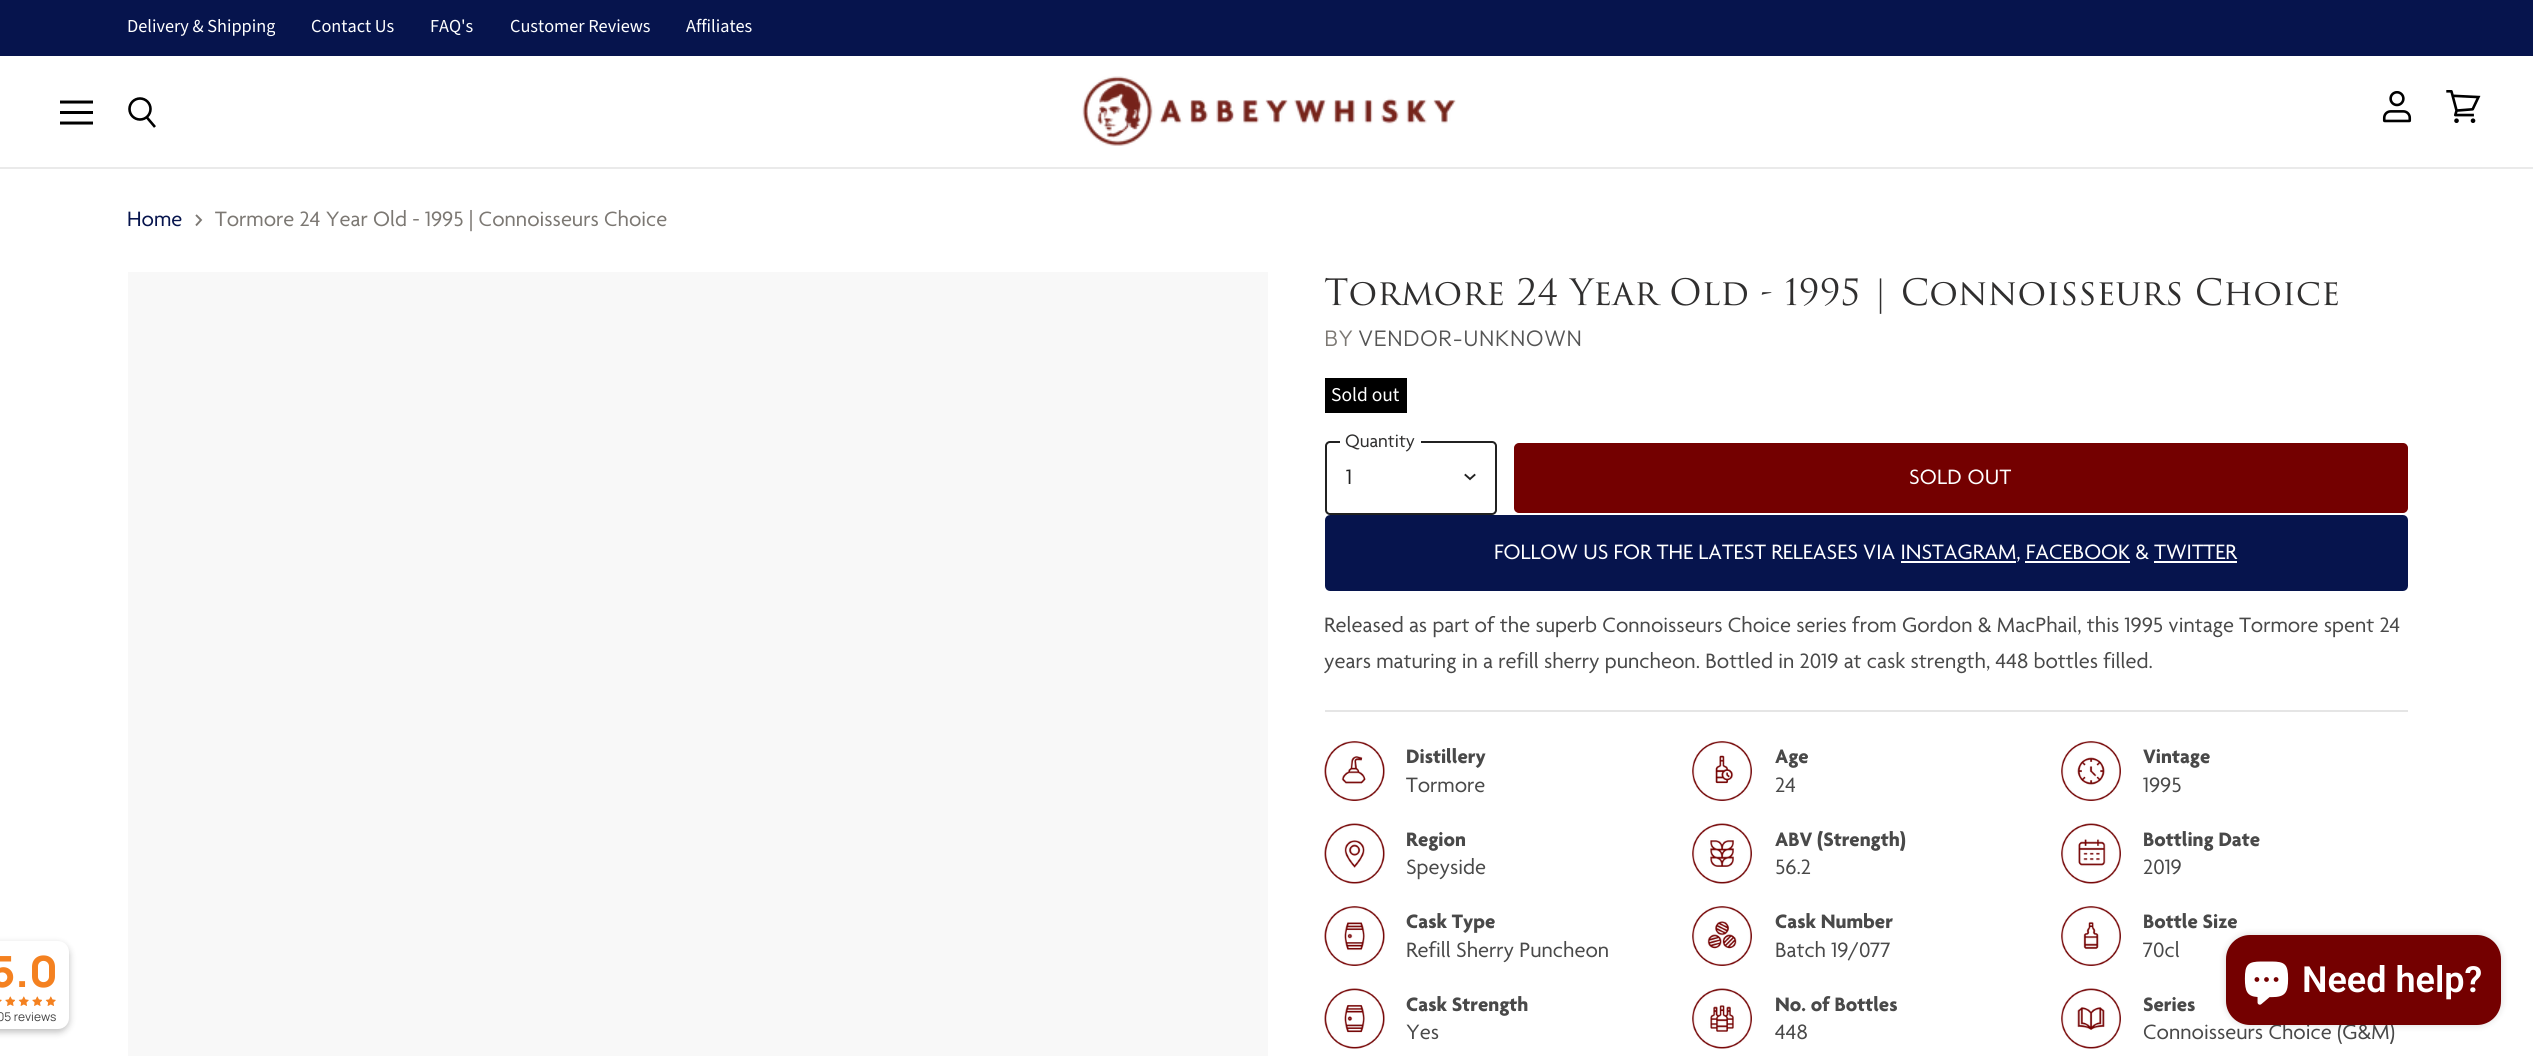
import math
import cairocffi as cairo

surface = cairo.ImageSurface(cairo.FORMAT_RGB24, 2533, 1056)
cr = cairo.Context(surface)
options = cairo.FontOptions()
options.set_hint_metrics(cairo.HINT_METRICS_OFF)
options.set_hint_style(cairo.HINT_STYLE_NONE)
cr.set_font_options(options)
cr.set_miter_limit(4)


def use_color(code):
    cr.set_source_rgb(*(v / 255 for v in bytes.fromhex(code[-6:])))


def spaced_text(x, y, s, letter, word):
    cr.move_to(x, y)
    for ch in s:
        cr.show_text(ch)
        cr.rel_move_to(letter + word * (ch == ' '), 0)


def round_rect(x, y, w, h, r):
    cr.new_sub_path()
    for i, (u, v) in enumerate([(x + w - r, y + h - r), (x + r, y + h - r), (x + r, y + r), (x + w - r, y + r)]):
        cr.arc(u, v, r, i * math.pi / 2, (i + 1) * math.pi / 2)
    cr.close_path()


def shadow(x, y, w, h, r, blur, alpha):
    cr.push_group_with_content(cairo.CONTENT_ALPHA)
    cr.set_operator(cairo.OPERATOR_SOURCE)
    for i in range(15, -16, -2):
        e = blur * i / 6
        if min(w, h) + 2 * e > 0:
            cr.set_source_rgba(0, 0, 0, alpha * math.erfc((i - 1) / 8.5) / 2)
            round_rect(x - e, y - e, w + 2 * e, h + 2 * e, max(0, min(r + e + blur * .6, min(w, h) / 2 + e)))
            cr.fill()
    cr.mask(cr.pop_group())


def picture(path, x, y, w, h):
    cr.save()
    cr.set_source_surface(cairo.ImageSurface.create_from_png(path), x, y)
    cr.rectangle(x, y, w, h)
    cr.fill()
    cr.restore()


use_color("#ffffff")
cr.paint()
use_color("#06144d")
cr.rectangle(0, 0, 2533, 56)
cr.fill()
cr.select_font_face("Source Sans Pro")
cr.set_font_size(18.25)
use_color("#ffffff")
cr.move_to(127, 32)
cr.show_text("Delivery & Shipping")
cr.move_to(311, 32)
cr.show_text("Contact Us")
cr.move_to(430, 32)
cr.show_text("FAQ's")
cr.move_to(510, 32)
cr.show_text("Customer Reviews")
cr.move_to(686, 32)
cr.show_text("Affiliates")
use_color("#eaeaea")
cr.rectangle(0, 167, 2533, 2)
cr.fill()
cr.new_path()
cr.move_to(91.5, 102)
cr.line_to(61.5, 102)
use_color("#000000")
cr.set_line_width(3)
cr.set_line_cap(cairo.LINE_CAP_SQUARE)
cr.set_line_join(cairo.LINE_JOIN_ROUND)
cr.stroke()
cr.rectangle(60, 111, 33, 3)
cr.fill()
cr.new_path()
cr.move_to(91.5, 123)
cr.line_to(61.5, 123)
cr.stroke()
cr.new_path()
cr.move_to(155, 127)
cr.line_to(146.5, 117)
cr.set_line_width(2.6)
cr.set_line_cap(cairo.LINE_CAP_BUTT)
cr.set_line_join(cairo.LINE_JOIN_MITER)
cr.stroke()
cr.arc(140, 109, 10.5, 0, 2 * math.pi)
cr.stroke()
picture("img1.png", 1082, 76, 374, 70)
picture("img2.png", 2382, 91, 30, 32)
picture("img3.png", 2446, 90, 35, 33)
use_color("#000000")
shadow(-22, 944, 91, 88, 11, 3.5, 0.26)
use_color("#ffffff")
round_rect(-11, 941, 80, 88, 11)
cr.fill()
cr.select_font_face("Manrope ExtraBold")
cr.set_font_size(43)
use_color("#f48120")
cr.move_to(-10, 987)
cr.show_text("5.0")
picture("img4.png", 0, 999, 2, 3)
picture("img5.png", 5, 996, 10, 10)
picture("img6.png", 18, 996, 11, 10)
picture("img5.png", 32, 996, 10, 10)
picture("img6.png", 45, 996, 11, 10)
cr.select_font_face("Manrope")
cr.set_font_size(12)
use_color("#404040")
cr.move_to(-3, 1021)
cr.show_text("05 reviews")
cr.select_font_face("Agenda")
cr.set_font_size(22.5)
use_color("#06144d")
cr.move_to(127, 226)
cr.show_text("Home")
cr.new_path()
cr.move_to(196, 225.5)
cr.line_to(201, 220)
cr.line_to(196, 215)
use_color("#7c7873")
cr.set_line_width(1.9)
cr.stroke()
cr.move_to(215, 226)
cr.show_text("Tormore 24 Year Old - 1995 | Connoisseurs Choice")
use_color("#f8f8f8")
cr.rectangle(128, 272, 1140, 784)
cr.fill()
cr.select_font_face("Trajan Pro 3")
cr.set_font_size(35.45)
use_color("#302f2f")
cr.move_to(1324, 305)
cr.show_text("Tormore 24 Year Old - 1995 | Connoisseurs Choice")
cr.select_font_face("Outfit Light")
cr.set_font_size(22.5)
use_color("#7c7873")
spaced_text(1324, 346, "BY", 0.25, 0)
use_color("#555555")
spaced_text(1358, 346, "VENDOR-UNKNOWN", 0.25, 0)
use_color("#000000")
cr.rectangle(1325, 378, 82, 35)
cr.fill()
cr.select_font_face("Source Sans Pro")
cr.set_font_size(19.5)
use_color("#ffffff")
cr.move_to(1331, 401)
cr.show_text("Sold out")
round_rect(1326, 442, 170, 72, 4)
use_color("#212121")
cr.set_line_width(2)
cr.stroke()
use_color("#ffffff")
cr.rectangle(1340, 441, 81, 2)
cr.fill()
cr.select_font_face("Agenda")
use_color("#302f2f")
cr.move_to(1345, 447)
cr.show_text("Quantity")
cr.set_font_size(22.5)
use_color("#212121")
cr.move_to(1346, 484)
cr.show_text("1")
cr.new_path()
cr.move_to(1470, 479)
cr.line_to(1474.5, 475)
cr.move_to(1470, 479)
cr.line_to(1465.5, 475)
cr.set_line_width(1.9)
cr.set_line_cap(cairo.LINE_CAP_SQUARE)
cr.stroke()
use_color("#740000")
round_rect(1515, 444, 892, 68, 4)
cr.fill_preserve()
cr.set_line_width(2)
cr.set_line_cap(cairo.LINE_CAP_BUTT)
cr.stroke()
use_color("#ffffff")
spaced_text(1909, 484, "SOLD OUT", 0.25, 0)
use_color("#06144d")
round_rect(1326.5, 516.5, 1080, 73, 3.5)
cr.fill_preserve()
cr.set_line_width(3)
cr.stroke()
use_color("#ffffff")
cr.move_to(1494, 559)
cr.show_text("FOLLOW US FOR THE LATEST RELEASES VIA INSTAGRAM, FACEBOOK & TWITTER")
cr.rectangle(1901, 561, 115, 2)
cr.fill()
cr.rectangle(2025, 561, 105, 2)
cr.fill()
cr.rectangle(2154, 561, 83, 2)
cr.fill()
use_color("#494949")
cr.move_to(1324, 632)
cr.show_text("Released as part of the superb Connoisseurs Choice series from Gordon & MacPhail, this 1995 vintage Tormore spent 24")
cr.move_to(1324, 668)
cr.show_text("years maturing in a refill sherry puncheon. Bottled in 2019 at cask strength, 448 bottles filled.")
use_color("#e5e5e5")
cr.rectangle(1325, 710, 1083, 2)
cr.fill()
picture("img7.png", 1324, 741, 61, 60)
cr.select_font_face("Agenda", cairo.FONT_SLANT_NORMAL, cairo.FONT_WEIGHT_BOLD)
cr.set_font_size(21)
use_color("#494949")
cr.move_to(1406, 763)
cr.show_text("Distillery")
cr.select_font_face("Agenda")
cr.set_font_size(22.5)
cr.move_to(1406, 792)
cr.show_text("Tormore")
picture("img8.png", 1692, 741, 60, 60)
cr.select_font_face("Agenda", cairo.FONT_SLANT_NORMAL, cairo.FONT_WEIGHT_BOLD)
cr.set_font_size(21)
cr.move_to(1775, 763)
cr.show_text("Age")
cr.select_font_face("Agenda")
cr.set_font_size(22.5)
cr.move_to(1775, 792)
cr.show_text("24")
picture("img9.png", 2061, 741, 60, 60)
cr.select_font_face("Agenda", cairo.FONT_SLANT_NORMAL, cairo.FONT_WEIGHT_BOLD)
cr.set_font_size(21)
cr.move_to(2143, 763)
cr.show_text("Vintage")
cr.select_font_face("Agenda")
cr.set_font_size(22.5)
cr.move_to(2143, 792)
cr.show_text("1995")
picture("img10.png", 1324, 823, 61, 61)
cr.select_font_face("Agenda", cairo.FONT_SLANT_NORMAL, cairo.FONT_WEIGHT_BOLD)
cr.set_font_size(21)
cr.move_to(1406, 846)
cr.show_text("Region")
cr.select_font_face("Agenda")
cr.set_font_size(22.5)
cr.move_to(1406, 874)
cr.show_text("Speyside")
picture("img11.png", 1692, 823, 60, 61)
cr.select_font_face("Agenda", cairo.FONT_SLANT_NORMAL, cairo.FONT_WEIGHT_BOLD)
cr.set_font_size(21)
cr.move_to(1775, 846)
cr.show_text("ABV (Strength)")
cr.select_font_face("Agenda")
cr.set_font_size(22.5)
cr.move_to(1775, 874)
cr.show_text("56.2")
picture("img12.png", 2061, 823, 60, 61)
cr.select_font_face("Agenda", cairo.FONT_SLANT_NORMAL, cairo.FONT_WEIGHT_BOLD)
cr.set_font_size(21)
cr.move_to(2143, 846)
cr.show_text("Bottling Date")
cr.select_font_face("Agenda")
cr.set_font_size(22.5)
cr.move_to(2143, 874)
cr.show_text("2019")
picture("img13.png", 1324, 906, 61, 60)
cr.select_font_face("Agenda", cairo.FONT_SLANT_NORMAL, cairo.FONT_WEIGHT_BOLD)
cr.set_font_size(21)
cr.move_to(1406, 928)
cr.show_text("Cask Type")
cr.select_font_face("Agenda")
cr.set_font_size(22.5)
cr.move_to(1406, 957)
cr.show_text("Refill Sherry Puncheon")
picture("img14.png", 1692, 906, 60, 60)
cr.select_font_face("Agenda", cairo.FONT_SLANT_NORMAL, cairo.FONT_WEIGHT_BOLD)
cr.set_font_size(21)
cr.move_to(1775, 928)
cr.show_text("Cask Number")
cr.select_font_face("Agenda")
cr.set_font_size(22.5)
cr.move_to(1775, 957)
cr.show_text("Batch 19/077")
picture("img15.png", 2061, 906, 60, 60)
cr.select_font_face("Agenda", cairo.FONT_SLANT_NORMAL, cairo.FONT_WEIGHT_BOLD)
cr.set_font_size(21)
cr.move_to(2143, 928)
cr.show_text("Bottle Size")
cr.select_font_face("Agenda")
cr.set_font_size(22.5)
cr.move_to(2143, 957)
cr.show_text("70cl")
picture("img16.png", 1324, 988, 61, 61)
cr.select_font_face("Agenda", cairo.FONT_SLANT_NORMAL, cairo.FONT_WEIGHT_BOLD)
cr.set_font_size(21)
cr.move_to(1406, 1011)
cr.show_text("Cask Strength")
cr.select_font_face("Agenda")
cr.set_font_size(22.5)
cr.move_to(1406, 1039)
cr.show_text("Yes")
picture("img17.png", 1692, 988, 60, 61)
cr.select_font_face("Agenda", cairo.FONT_SLANT_NORMAL, cairo.FONT_WEIGHT_BOLD)
cr.set_font_size(21)
cr.move_to(1775, 1011)
cr.show_text("No. of Bottles")
cr.select_font_face("Agenda")
cr.set_font_size(22.5)
cr.move_to(1775, 1039)
cr.show_text("448")
picture("img18.png", 2061, 988, 60, 61)
cr.select_font_face("Agenda", cairo.FONT_SLANT_NORMAL, cairo.FONT_WEIGHT_BOLD)
cr.set_font_size(21)
cr.move_to(2143, 1011)
cr.show_text("Series")
cr.select_font_face("Agenda")
cr.set_font_size(22.5)
cr.move_to(2143, 1039)
cr.show_text("Connoisseurs Choice (G&M)")
use_color("#000000")
shadow(2226, 935, 275, 90, 24, 4, 0.15)
use_color("#740000")
round_rect(2226, 935, 275, 90, 24)
cr.fill()
picture("img19.png", 2244, 961, 45, 44)
cr.select_font_face("Roboto SemiBold")
cr.set_font_size(36)
use_color("#ffffff")
cr.move_to(2302, 992)
cr.show_text("Need help?")
surface.write_to_png("result.png")
